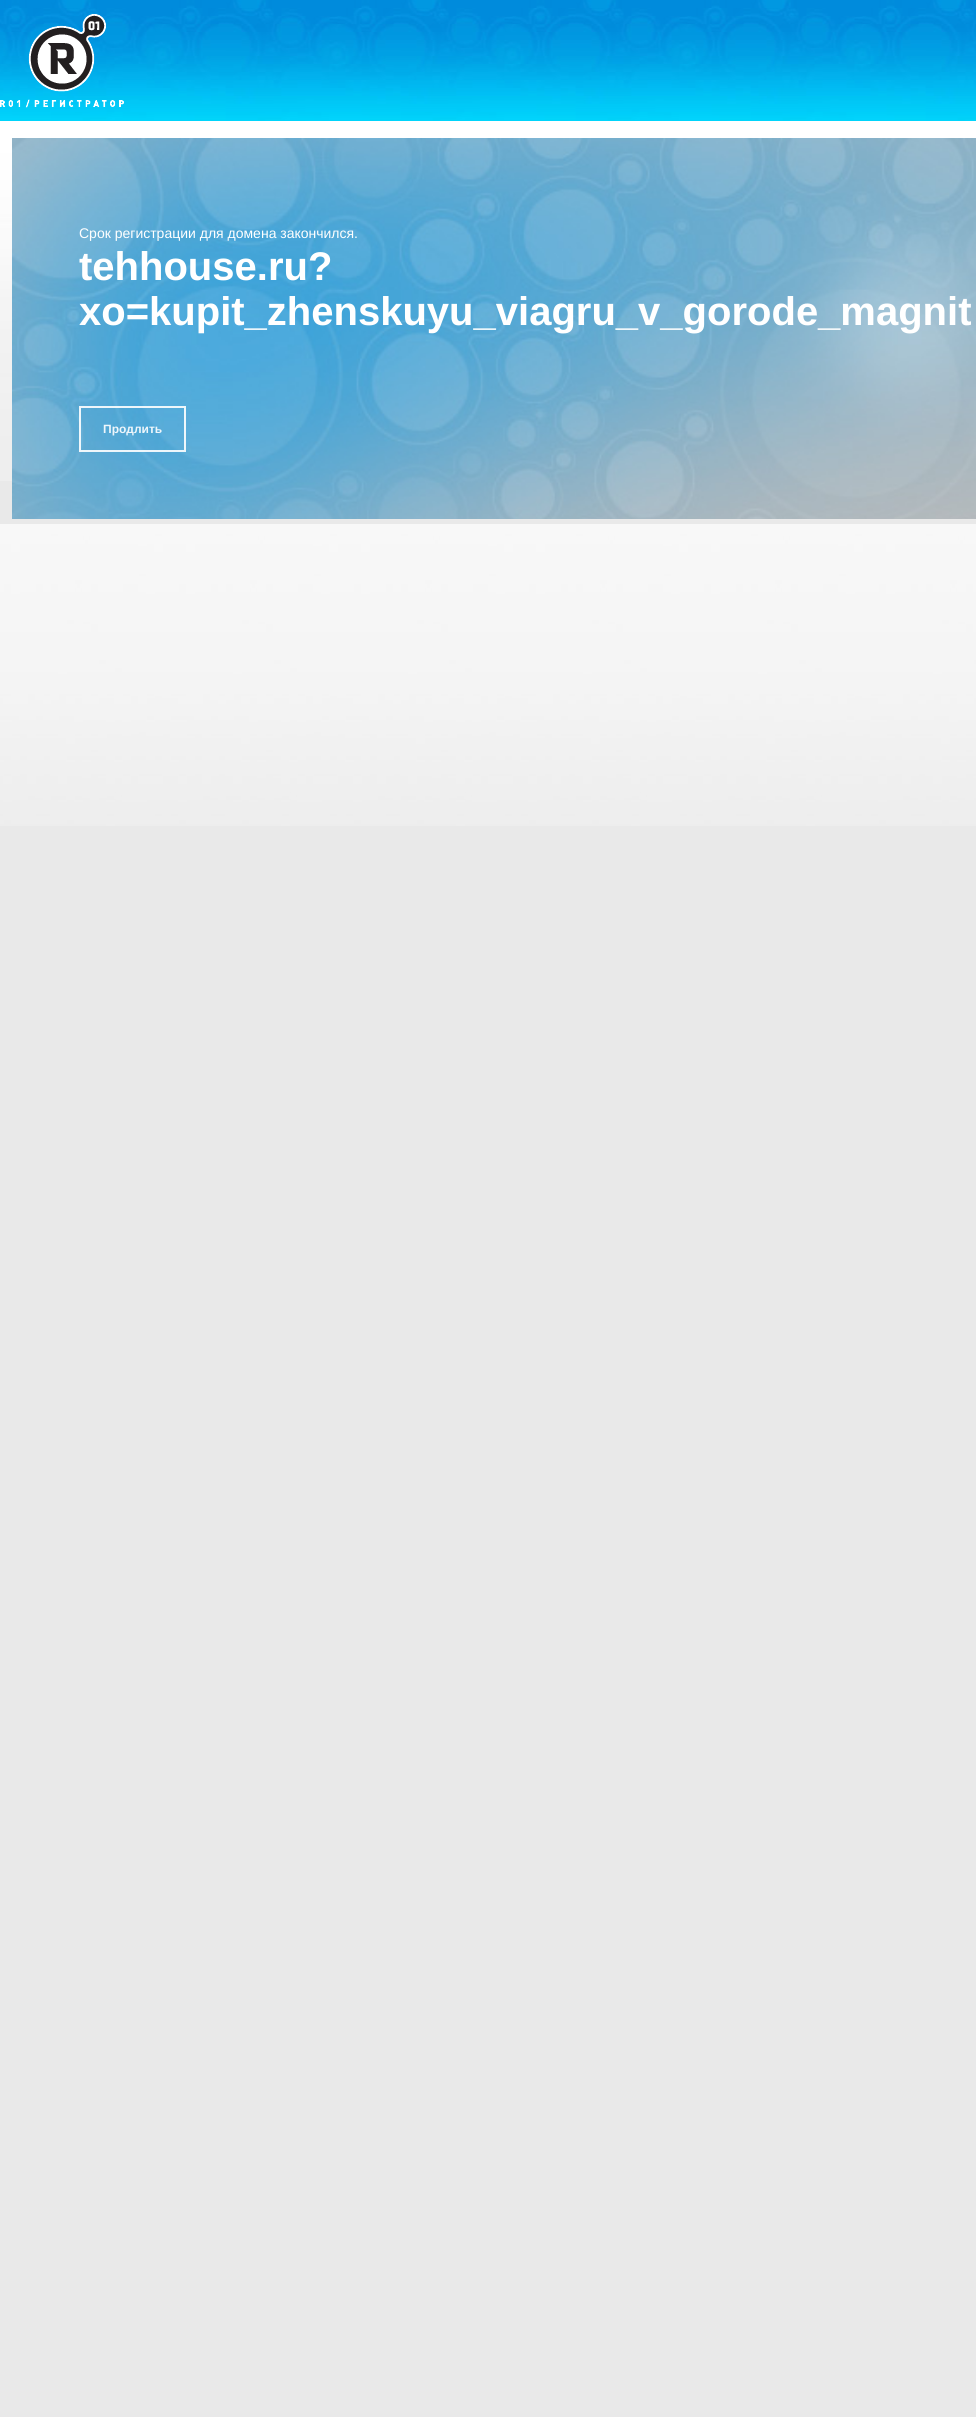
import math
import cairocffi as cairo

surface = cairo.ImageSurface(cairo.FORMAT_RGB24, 976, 2417)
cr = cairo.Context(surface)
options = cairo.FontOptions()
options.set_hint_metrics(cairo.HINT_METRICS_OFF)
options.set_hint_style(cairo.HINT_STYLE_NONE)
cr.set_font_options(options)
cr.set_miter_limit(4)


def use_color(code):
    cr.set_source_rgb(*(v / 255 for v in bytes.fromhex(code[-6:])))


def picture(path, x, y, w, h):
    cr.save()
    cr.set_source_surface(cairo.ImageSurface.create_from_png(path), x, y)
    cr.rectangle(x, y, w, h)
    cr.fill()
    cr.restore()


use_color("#e9e9e9")
cr.paint()
picture("img1.png", 0, 0, 976, 826)
picture("img2.png", 0, 14, 124, 94)
use_color("#e9e9e9")
cr.rectangle(0, 481, 976, 43)
cr.fill()
picture("img3.png", 0, 121, 976, 360)
picture("img4.png", 12, 138, 964, 381)
cr.select_font_face("Liberation Sans")
cr.set_font_size(14)
use_color("#ffffff")
cr.move_to(79, 238)
cr.show_text("Срок регистрации для домена закончился.")
cr.select_font_face("Liberation Sans", cairo.FONT_SLANT_NORMAL, cairo.FONT_WEIGHT_BOLD)
cr.set_font_size(40)
cr.move_to(79, 280)
cr.show_text("tehhouse.ru?")
cr.move_to(79, 325)
cr.show_text("xo=kupit_zhenskuyu_viagru_v_gorode_magnit")
cr.rectangle(80, 407, 105, 44)
cr.set_source_rgba(1, 1, 1, 0.9)
cr.stroke()
cr.set_font_size(12)
use_color("#eef6fb")
cr.move_to(103, 433)
cr.show_text("Продлить")
surface.write_to_png("result.png")
